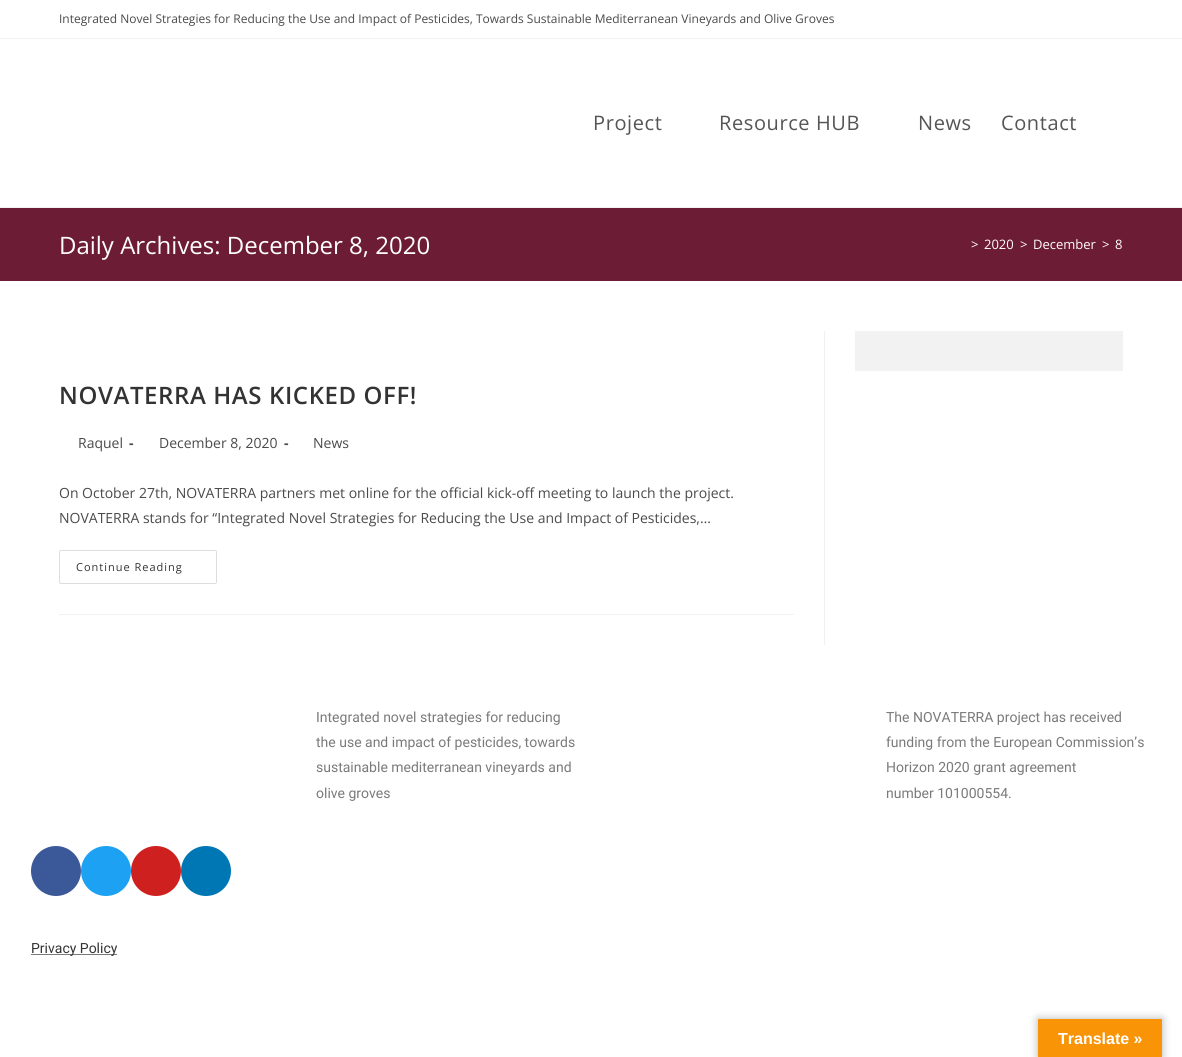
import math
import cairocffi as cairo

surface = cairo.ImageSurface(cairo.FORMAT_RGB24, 1182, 1057)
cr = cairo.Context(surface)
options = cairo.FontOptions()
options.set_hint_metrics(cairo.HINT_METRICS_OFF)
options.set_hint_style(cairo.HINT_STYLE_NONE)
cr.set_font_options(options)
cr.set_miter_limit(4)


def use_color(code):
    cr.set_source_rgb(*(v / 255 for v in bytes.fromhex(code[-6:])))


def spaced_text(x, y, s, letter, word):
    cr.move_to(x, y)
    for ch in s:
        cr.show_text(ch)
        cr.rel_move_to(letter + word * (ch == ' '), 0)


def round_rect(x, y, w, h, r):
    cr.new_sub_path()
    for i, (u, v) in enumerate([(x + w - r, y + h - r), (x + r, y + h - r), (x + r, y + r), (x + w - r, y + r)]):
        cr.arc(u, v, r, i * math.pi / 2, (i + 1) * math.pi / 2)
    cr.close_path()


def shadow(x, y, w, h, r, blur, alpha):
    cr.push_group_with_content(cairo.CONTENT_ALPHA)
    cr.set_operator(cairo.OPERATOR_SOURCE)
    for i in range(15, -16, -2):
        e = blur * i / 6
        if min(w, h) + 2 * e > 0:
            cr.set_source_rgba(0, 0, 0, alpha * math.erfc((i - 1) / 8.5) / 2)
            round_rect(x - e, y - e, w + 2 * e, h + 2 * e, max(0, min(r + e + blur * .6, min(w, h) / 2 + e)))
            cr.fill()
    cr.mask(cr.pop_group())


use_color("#ffffff")
cr.paint()
use_color("#f1f1f1")
cr.rectangle(0, 38, 1182, 1)
cr.fill()
cr.select_font_face("Open Sans")
cr.set_font_size(12)
use_color("#4a4a4a")
cr.move_to(59, 23)
cr.show_text("Integrated Novel Strategies for Reducing the Use and Impact of Pesticides, Towards Sustainable Mediterranean Vineyards and Olive Groves")
use_color("#f1f1f1")
cr.rectangle(0, 207, 1182, 1)
cr.fill()
cr.set_font_size(20)
use_color("#555555")
spaced_text(593, 130, "Project", 0.6, 0)
spaced_text(719, 130, "Resource HUB", 0.6, 0)
spaced_text(918, 130, "News", 0.6, 0)
spaced_text(1001, 130, "Contact", 0.6, 0)
use_color("#6c1c34")
cr.rectangle(0, 208, 1182, 73)
cr.fill()
cr.set_font_size(24)
use_color("#ffffff")
cr.move_to(59, 254)
cr.show_text("Daily Archives: December 8, 2020")
cr.set_font_size(13)
cr.move_to(971, 249)
cr.show_text(">")
cr.move_to(984, 249)
cr.show_text("2020")
cr.move_to(1020, 249)
cr.show_text(">")
cr.move_to(1033, 249)
cr.show_text("December")
cr.move_to(1102, 249)
cr.show_text(">")
cr.move_to(1115, 249)
cr.show_text("8")
use_color("#f2f2f2")
cr.rectangle(855, 331, 268, 40)
cr.fill()
use_color("#f1f1f1")
cr.rectangle(824, 331, 1, 314)
cr.fill()
cr.rectangle(59, 614, 735, 1)
cr.fill()
cr.select_font_face("Open Sans SemiBold")
cr.set_font_size(24)
use_color("#333333")
spaced_text(59, 404, "NOVATERRA HAS KICKED OFF!", 0.6, 0)
cr.select_font_face("Open Sans")
cr.set_font_size(14)
use_color("#4a4a4a")
cr.move_to(78, 448)
cr.show_text("Raquel")
cr.select_font_face("Open Sans", cairo.FONT_SLANT_NORMAL, cairo.FONT_WEIGHT_BOLD)
cr.move_to(129, 448)
cr.show_text("-")
cr.select_font_face("Open Sans")
cr.move_to(159, 448)
cr.show_text("December 8, 2020")
cr.select_font_face("Open Sans", cairo.FONT_SLANT_NORMAL, cairo.FONT_WEIGHT_BOLD)
cr.move_to(284, 448)
cr.show_text("-")
cr.select_font_face("Open Sans")
cr.move_to(313, 448)
cr.show_text("News")
cr.move_to(59, 498)
cr.show_text("On October 27th, NOVATERRA partners met online for the official kick-off meeting to launch the project.")
cr.move_to(59, 523)
cr.show_text("NOVATERRA stands for “Integrated Novel Strategies for Reducing the Use and Impact of Pesticides,…")
round_rect(59.5, 550.5, 157, 33, 1.5)
use_color("#dddddd")
cr.set_line_width(1)
cr.stroke()
cr.set_font_size(11)
use_color("#333333")
spaced_text(76, 571, "Continue Reading", 1, 0)
cr.select_font_face("Roboto")
cr.set_font_size(14)
use_color("#7a7a7a")
cr.move_to(316, 722)
cr.show_text("Integrated novel strategies for reducing")
cr.move_to(316, 747)
cr.show_text("the use and impact of pesticides, towards")
cr.move_to(316, 772)
cr.show_text("sustainable mediterranean vineyards and")
cr.move_to(316, 798)
cr.show_text("olive groves")
cr.move_to(886, 722)
cr.show_text("The NOVATERRA project has received")
cr.move_to(886, 747)
cr.show_text("funding from the European Commission’s")
cr.move_to(886, 772)
cr.show_text("Horizon 2020 grant agreement")
cr.move_to(886, 798)
cr.show_text("number 101000554.")
use_color("#3b5998")
cr.new_path()
cr.arc(56, 871, 25, 0, 2 * math.pi)
cr.fill()
use_color("#1da1f2")
cr.arc(106, 871, 25, 0, 2 * math.pi)
cr.fill()
use_color("#cd201f")
cr.arc(156, 871, 25, 0, 2 * math.pi)
cr.fill()
use_color("#0077b5")
cr.arc(206, 871, 25, 0, 2 * math.pi)
cr.fill()
use_color("#7a7a7a")
cr.rectangle(31, 954, 86, 1)
cr.fill()
use_color("#333333")
cr.move_to(31, 953)
cr.show_text("Privacy Policy")
use_color("#000000")
shadow(1038, 1019, 124, 38, 0, 4.5, 0.3)
use_color("#f89406")
cr.rectangle(1038, 1019, 124, 38)
cr.fill()
cr.select_font_face("Liberation Sans", cairo.FONT_SLANT_NORMAL, cairo.FONT_WEIGHT_BOLD)
cr.set_font_size(16)
use_color("#ffffff")
cr.move_to(1058, 1044)
cr.show_text("Translate »")
surface.write_to_png("result.png")
